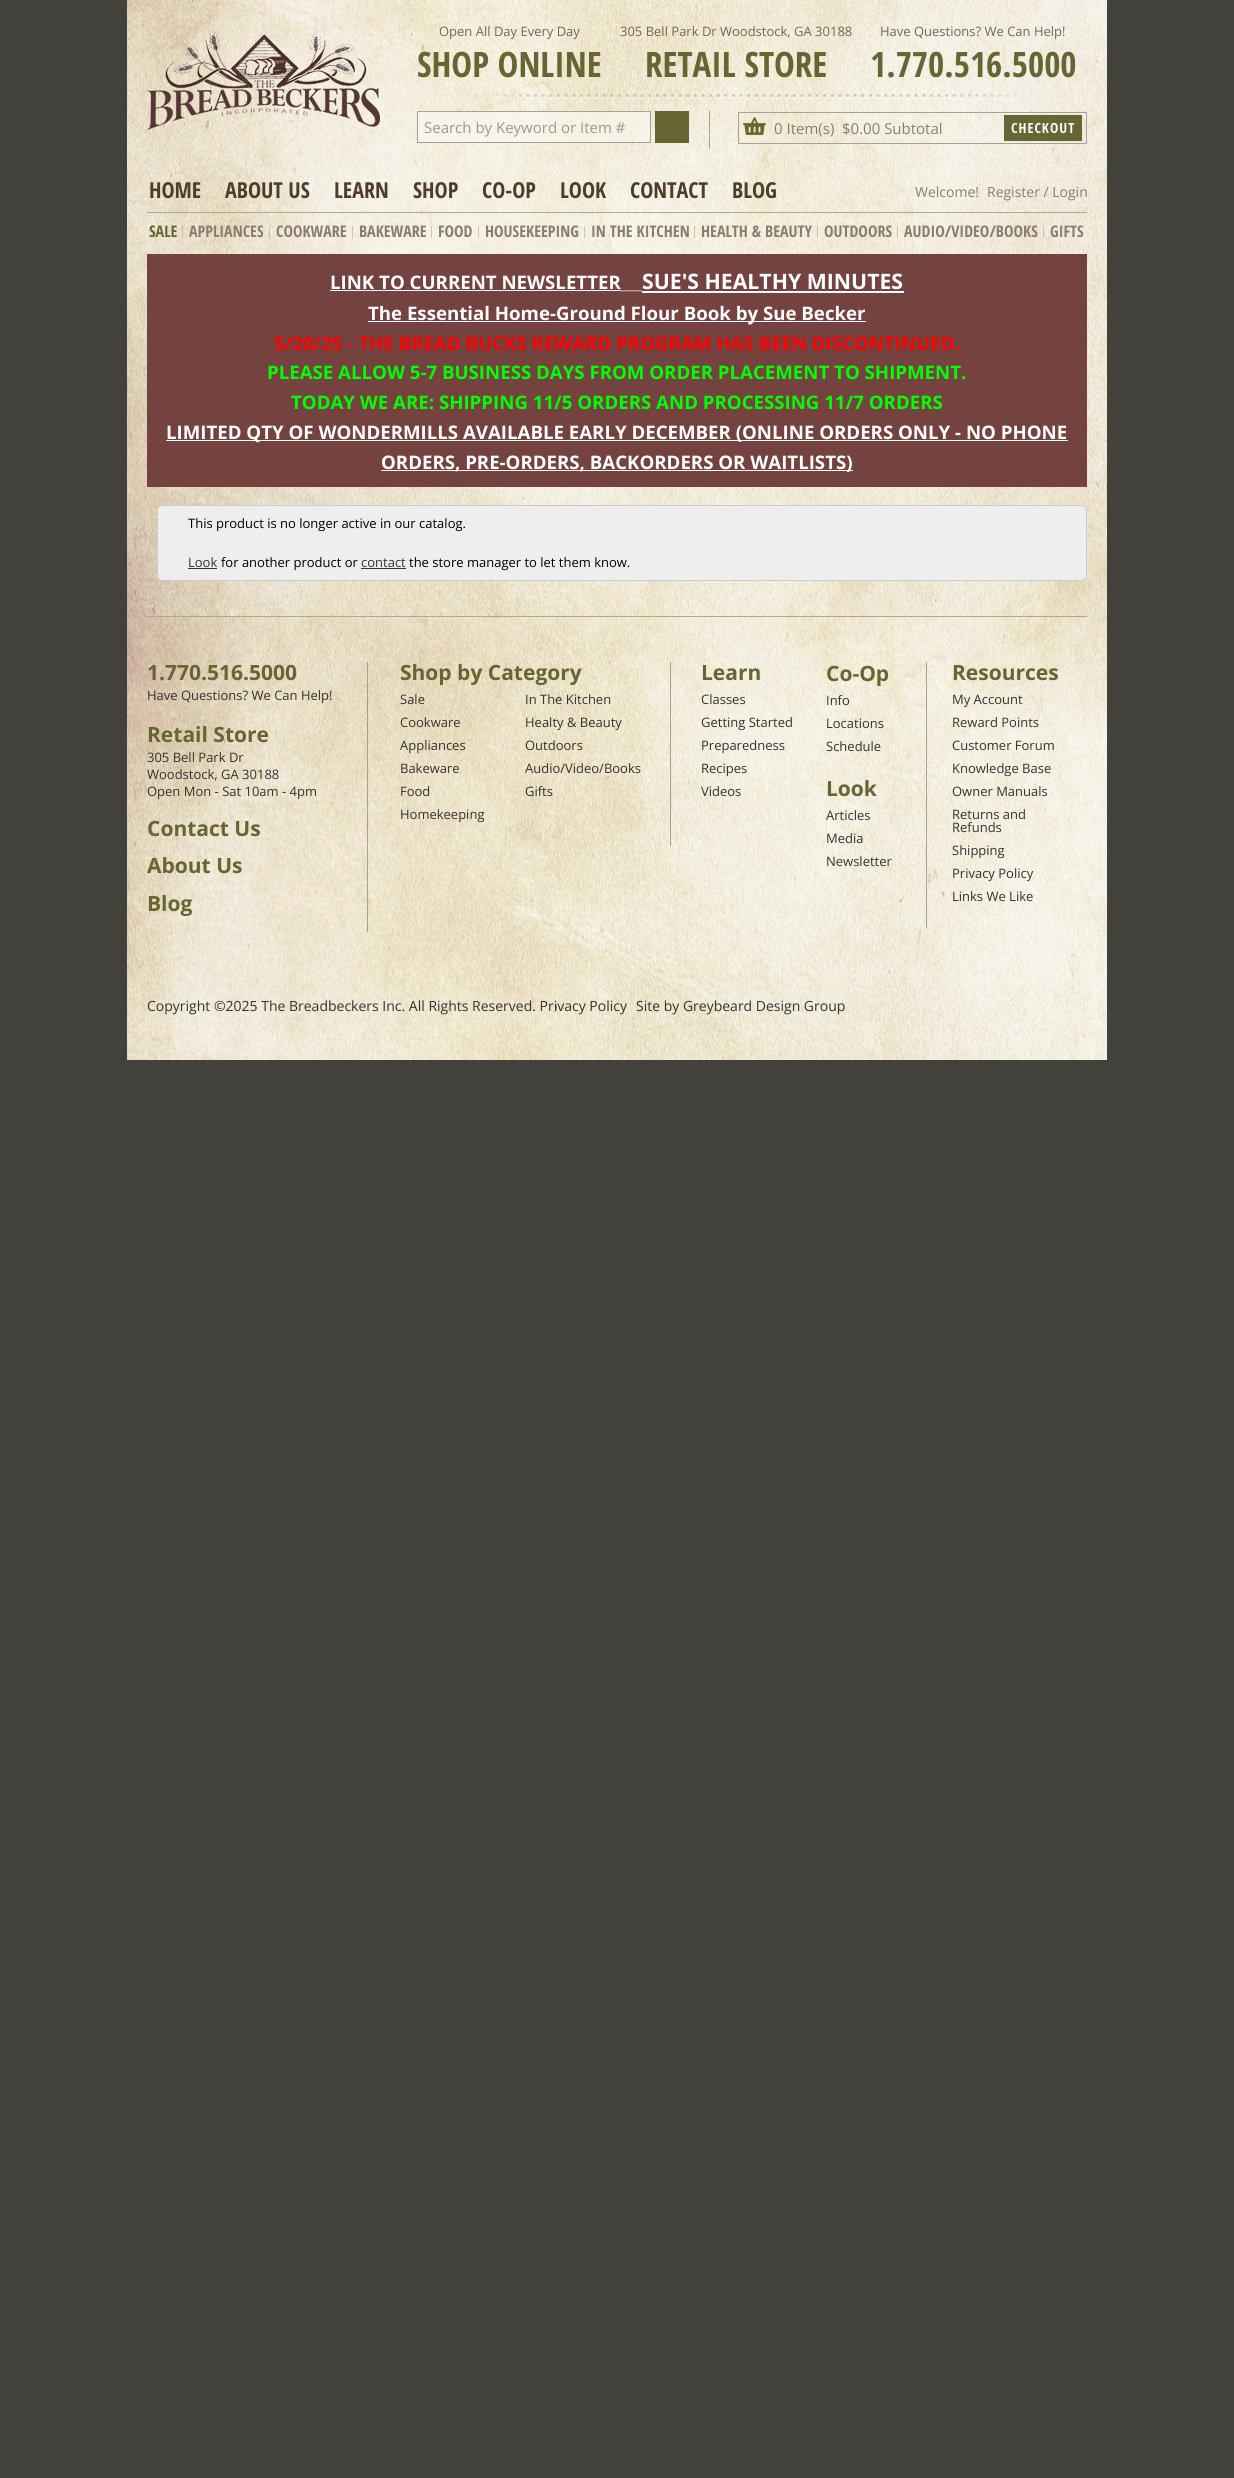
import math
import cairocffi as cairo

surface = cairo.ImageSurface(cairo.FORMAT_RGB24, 1234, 2478)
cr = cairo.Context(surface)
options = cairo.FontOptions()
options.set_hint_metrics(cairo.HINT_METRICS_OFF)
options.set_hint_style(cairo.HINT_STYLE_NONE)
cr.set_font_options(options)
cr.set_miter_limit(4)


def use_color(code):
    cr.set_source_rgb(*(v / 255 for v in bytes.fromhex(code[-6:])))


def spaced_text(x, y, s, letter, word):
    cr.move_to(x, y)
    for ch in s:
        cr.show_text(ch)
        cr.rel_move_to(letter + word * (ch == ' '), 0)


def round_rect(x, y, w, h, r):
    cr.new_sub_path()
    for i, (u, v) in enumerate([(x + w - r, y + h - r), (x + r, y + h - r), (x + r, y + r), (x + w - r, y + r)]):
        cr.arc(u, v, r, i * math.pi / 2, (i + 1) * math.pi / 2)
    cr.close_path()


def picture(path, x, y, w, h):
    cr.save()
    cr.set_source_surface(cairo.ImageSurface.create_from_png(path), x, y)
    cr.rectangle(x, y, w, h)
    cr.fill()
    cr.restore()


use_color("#42413c")
cr.paint()
picture("img1.png", 127, 0, 980, 1060)
picture("img2.png", 147, 30, 233, 100)
picture("img3.png", 458, 94, 589, 5)
cr.select_font_face("Open Sans")
cr.set_font_size(13)
use_color("#76645a")
cr.move_to(439, 36)
cr.show_text("Open All Day Every Day")
cr.select_font_face("Open Sans Condensed", cairo.FONT_SLANT_NORMAL, cairo.FONT_WEIGHT_BOLD)
cr.set_font_size(35)
use_color("#666633")
cr.move_to(417, 77)
cr.show_text("SHOP ONLINE")
cr.select_font_face("Open Sans")
cr.set_font_size(13)
use_color("#76645a")
cr.move_to(620, 36)
cr.show_text("305 Bell Park Dr Woodstock, GA 30188")
cr.select_font_face("Open Sans Condensed", cairo.FONT_SLANT_NORMAL, cairo.FONT_WEIGHT_BOLD)
cr.set_font_size(35)
use_color("#666633")
cr.move_to(645, 77)
cr.show_text("RETAIL STORE")
cr.select_font_face("Open Sans")
cr.set_font_size(13)
use_color("#76645a")
cr.move_to(880, 36)
cr.show_text("Have Questions? We Can Help!")
cr.select_font_face("Open Sans Condensed", cairo.FONT_SLANT_NORMAL, cairo.FONT_WEIGHT_BOLD)
cr.set_font_size(35)
use_color("#666633")
cr.move_to(870, 77)
cr.show_text("1.770.516.5000")
use_color("#a89f98")
cr.rectangle(709, 111, 1, 38)
cr.fill()
cr.set_source_rgba(0.984, 0.973, 0.957, 0.6)
cr.rectangle(417.5, 111.5, 233, 31)
cr.fill_preserve()
use_color("#a89f98")
cr.set_line_width(1)
cr.stroke()
cr.select_font_face("Open Sans")
cr.set_font_size(15)
use_color("#999999")
cr.move_to(424, 133)
cr.show_text("Search by Keyword or Item #")
use_color("#666633")
cr.rectangle(655, 111, 34, 32)
cr.fill()
picture("img4.png", 743, 117, 23, 18)
cr.rectangle(738.5, 112.5, 348, 31)
use_color("#a89f98")
cr.stroke()
use_color("#8b7d6d")
cr.move_to(774, 134)
cr.show_text("0 Item(s)")
cr.move_to(842, 134)
cr.show_text("$0.00 Subtotal")
use_color("#666633")
cr.rectangle(1004, 115, 78, 26)
cr.fill()
cr.select_font_face("Open Sans Condensed", cairo.FONT_SLANT_NORMAL, cairo.FONT_WEIGHT_BOLD)
cr.set_font_size(14)
use_color("#ffffff")
spaced_text(1011, 133, "CHECKOUT", 1, 0)
cr.set_font_size(22)
use_color("#4e3d2a")
cr.move_to(149, 198)
cr.show_text("HOME")
cr.move_to(225, 198)
cr.show_text("ABOUT US")
cr.move_to(334, 198)
cr.show_text("LEARN")
cr.move_to(413, 198)
cr.show_text("SHOP")
cr.move_to(482, 198)
cr.show_text("CO-OP")
cr.move_to(560, 198)
cr.show_text("LOOK")
cr.move_to(630, 198)
cr.show_text("CONTACT")
cr.move_to(732, 198)
cr.show_text("BLOG")
cr.select_font_face("Open Sans")
cr.set_font_size(14)
use_color("#8b7d6d")
cr.move_to(915, 197)
cr.show_text("Welcome!")
cr.move_to(987, 197)
cr.show_text("Register / Login")
use_color("#b0ab87")
cr.rectangle(147, 212, 940, 1)
cr.fill()
cr.select_font_face("Open Sans Condensed", cairo.FONT_SLANT_NORMAL, cairo.FONT_WEIGHT_BOLD)
cr.set_font_size(16)
use_color("#666633")
cr.move_to(149, 237)
cr.show_text("SALE")
cr.set_source_rgba(0.404, 0.404, 0.169, 0.3)
cr.rectangle(182, 226, 1, 12)
cr.fill()
use_color("#8b7d6d")
cr.move_to(189, 237)
cr.show_text("APPLIANCES")
cr.set_source_rgba(0.404, 0.404, 0.169, 0.3)
cr.rectangle(269, 226, 1, 12)
cr.fill()
use_color("#8b7d6d")
cr.move_to(276, 237)
cr.show_text("COOKWARE")
cr.set_source_rgba(0.404, 0.404, 0.169, 0.3)
cr.rectangle(352, 226, 1, 12)
cr.fill()
use_color("#8b7d6d")
cr.move_to(359, 237)
cr.show_text("BAKEWARE")
cr.set_source_rgba(0.404, 0.404, 0.169, 0.3)
cr.rectangle(431, 226, 1, 12)
cr.fill()
use_color("#8b7d6d")
cr.move_to(438, 237)
cr.show_text("FOOD")
cr.set_source_rgba(0.404, 0.404, 0.169, 0.3)
cr.rectangle(478, 226, 1, 12)
cr.fill()
use_color("#8b7d6d")
cr.move_to(485, 237)
cr.show_text("HOUSEKEEPING")
cr.set_source_rgba(0.404, 0.404, 0.169, 0.3)
cr.rectangle(584, 226, 1, 12)
cr.fill()
use_color("#8b7d6d")
cr.move_to(591, 237)
cr.show_text("IN THE KITCHEN")
cr.set_source_rgba(0.404, 0.404, 0.169, 0.3)
cr.rectangle(694, 226, 1, 12)
cr.fill()
use_color("#8b7d6d")
cr.move_to(701, 237)
cr.show_text("HEALTH & BEAUTY")
cr.set_source_rgba(0.404, 0.404, 0.169, 0.3)
cr.rectangle(817, 226, 1, 12)
cr.fill()
use_color("#8b7d6d")
cr.move_to(824, 237)
cr.show_text("OUTDOORS")
cr.set_source_rgba(0.404, 0.404, 0.169, 0.3)
cr.rectangle(897, 226, 1, 12)
cr.fill()
use_color("#8b7d6d")
cr.move_to(904, 237)
cr.show_text("AUDIO/VIDEO/BOOKS")
cr.set_source_rgba(0.404, 0.404, 0.169, 0.3)
cr.rectangle(1043, 226, 1, 12)
cr.fill()
use_color("#8b7d6d")
cr.move_to(1050, 237)
cr.show_text("GIFTS")
use_color("#74433f")
cr.rectangle(147, 254, 940, 233)
cr.fill()
cr.select_font_face("Open Sans", cairo.FONT_SLANT_NORMAL, cairo.FONT_WEIGHT_BOLD)
cr.set_font_size(18.65)
use_color("#ffffff")
cr.move_to(330, 289)
cr.show_text("LINK TO CURRENT NEWSLETTER")
cr.rectangle(330, 290, 291, 1)
cr.fill()
cr.set_font_size(21.25)
cr.move_to(642, 289)
cr.show_text("SUE'S HEALTHY MINUTES")
cr.rectangle(642, 291, 262, 2)
cr.fill()
cr.select_font_face("Open Sans Light")
cr.set_font_size(17)
cr.move_to(621, 289)
cr.show_text("___")
cr.rectangle(368, 321, 498, 1)
cr.fill()
cr.select_font_face("Open Sans", cairo.FONT_SLANT_NORMAL, cairo.FONT_WEIGHT_BOLD)
cr.set_font_size(18.65)
cr.move_to(368, 320)
cr.show_text("The Essential Home-Ground Flour Book by Sue Becker")
use_color("#ff0000")
cr.move_to(274, 350)
cr.show_text("5/20/25 - THE BREAD BUCKS REWARD PROGRAM HAS BEEN DISCONTINUED.")
use_color("#00ff00")
cr.move_to(267, 379)
cr.show_text("PLEASE ALLOW 5-7 BUSINESS DAYS FROM ORDER PLACEMENT TO SHIPMENT.")
cr.move_to(291, 409)
cr.show_text("TODAY WE ARE: SHIPPING 11/5 ORDERS AND PROCESSING 11/7 ORDERS")
use_color("#ffffff")
cr.rectangle(166, 440, 902, 1)
cr.fill()
cr.move_to(166, 439)
cr.show_text("LIMITED QTY OF WONDERMILLS AVAILABLE EARLY DECEMBER (ONLINE ORDERS ONLY - NO PHONE")
cr.rectangle(381, 470, 472, 1)
cr.fill()
cr.move_to(381, 469)
cr.show_text("ORDERS, PRE-ORDERS, BACKORDERS OR WAITLISTS)")
use_color("#eeeeee")
round_rect(157.5, 505.5, 929, 75, 4.5)
cr.fill_preserve()
use_color("#cccccc")
cr.stroke()
cr.select_font_face("Open Sans")
cr.set_font_size(13)
use_color("#000000")
cr.move_to(188, 528)
cr.show_text("This product is no longer active in our catalog.")
use_color("#333333")
cr.move_to(188, 567)
cr.show_text("Look")
cr.rectangle(188, 568, 29, 1)
cr.fill()
use_color("#000000")
cr.move_to(221, 567)
cr.show_text("for another product or")
use_color("#333333")
cr.move_to(361, 567)
cr.show_text("contact")
cr.rectangle(361, 568, 45, 1)
cr.fill()
use_color("#000000")
cr.move_to(409, 567)
cr.show_text("the store manager to let them know.")
use_color("#b0ab87")
cr.rectangle(147, 616, 940, 1)
cr.fill()
use_color("#a89f98")
cr.rectangle(367, 662, 1, 270)
cr.fill()
cr.select_font_face("Open Sans", cairo.FONT_SLANT_NORMAL, cairo.FONT_WEIGHT_BOLD)
cr.set_font_size(21)
use_color("#666633")
cr.move_to(147, 680)
cr.show_text("1.770.516.5000")
cr.select_font_face("Open Sans")
cr.set_font_size(13)
use_color("#333333")
cr.move_to(147, 700)
cr.show_text("Have Questions? We Can Help!")
cr.select_font_face("Open Sans", cairo.FONT_SLANT_NORMAL, cairo.FONT_WEIGHT_BOLD)
cr.set_font_size(21)
use_color("#666633")
cr.move_to(147, 742)
cr.show_text("Retail Store")
cr.select_font_face("Open Sans")
cr.set_font_size(13)
use_color("#333333")
cr.move_to(147, 762)
cr.show_text("305 Bell Park Dr")
cr.move_to(147, 779)
cr.show_text("Woodstock, GA 30188")
cr.move_to(147, 796)
cr.show_text("Open Mon - Sat 10am - 4pm")
cr.select_font_face("Open Sans", cairo.FONT_SLANT_NORMAL, cairo.FONT_WEIGHT_BOLD)
cr.set_font_size(21)
use_color("#666633")
cr.move_to(147, 836)
cr.show_text("Contact Us")
cr.move_to(147, 873)
cr.show_text("About Us")
cr.move_to(147, 911)
cr.show_text("Blog")
use_color("#a89f98")
cr.rectangle(670, 662, 1, 184)
cr.fill()
use_color("#666633")
cr.move_to(400, 680)
cr.show_text("Shop by Category")
cr.select_font_face("Open Sans")
cr.set_font_size(13)
use_color("#333333")
cr.move_to(400, 704)
cr.show_text("Sale")
cr.move_to(400, 727)
cr.show_text("Cookware")
cr.move_to(400, 750)
cr.show_text("Appliances")
cr.move_to(400, 773)
cr.show_text("Bakeware")
cr.move_to(400, 796)
cr.show_text("Food")
cr.move_to(400, 819)
cr.show_text("Homekeeping")
cr.move_to(525, 704)
cr.show_text("In The Kitchen")
cr.move_to(525, 727)
cr.show_text("Healty & Beauty")
cr.move_to(525, 750)
cr.show_text("Outdoors")
cr.move_to(525, 773)
cr.show_text("Audio/Video/Books")
cr.move_to(525, 796)
cr.show_text("Gifts")
use_color("#a89f98")
cr.rectangle(926, 662, 1, 266)
cr.fill()
cr.select_font_face("Open Sans", cairo.FONT_SLANT_NORMAL, cairo.FONT_WEIGHT_BOLD)
cr.set_font_size(21)
use_color("#666633")
cr.move_to(701, 680)
cr.show_text("Learn")
cr.move_to(826, 681)
cr.show_text("Co-Op")
cr.select_font_face("Open Sans")
cr.set_font_size(13)
use_color("#333333")
cr.move_to(826, 705)
cr.show_text("Info")
cr.move_to(826, 728)
cr.show_text("Locations")
cr.move_to(826, 751)
cr.show_text("Schedule")
cr.select_font_face("Open Sans", cairo.FONT_SLANT_NORMAL, cairo.FONT_WEIGHT_BOLD)
cr.set_font_size(21)
use_color("#666633")
cr.move_to(826, 796)
cr.show_text("Look")
cr.select_font_face("Open Sans")
cr.set_font_size(13)
use_color("#333333")
cr.move_to(826, 820)
cr.show_text("Articles")
cr.move_to(826, 843)
cr.show_text("Media")
cr.move_to(826, 866)
cr.show_text("Newsletter")
cr.move_to(701, 704)
cr.show_text("Classes")
cr.move_to(701, 727)
cr.show_text("Getting Started")
cr.move_to(701, 750)
cr.show_text("Preparedness")
cr.move_to(701, 773)
cr.show_text("Recipes")
cr.move_to(701, 796)
cr.show_text("Videos")
cr.select_font_face("Open Sans", cairo.FONT_SLANT_NORMAL, cairo.FONT_WEIGHT_BOLD)
cr.set_font_size(21)
use_color("#666633")
cr.move_to(952, 680)
cr.show_text("Resources")
cr.select_font_face("Open Sans")
cr.set_font_size(13)
use_color("#333333")
cr.move_to(952, 704)
cr.show_text("My Account")
cr.move_to(952, 727)
cr.show_text("Reward Points")
cr.move_to(952, 750)
cr.show_text("Customer Forum")
cr.move_to(952, 773)
cr.show_text("Knowledge Base")
cr.move_to(952, 796)
cr.show_text("Owner Manuals")
cr.move_to(952, 819)
cr.show_text("Returns and")
cr.move_to(952, 832)
cr.show_text("Refunds")
cr.move_to(952, 855)
cr.show_text("Shipping")
cr.move_to(952, 878)
cr.show_text("Privacy Policy")
cr.move_to(952, 901)
cr.show_text("Links We Like")
cr.set_font_size(14)
cr.move_to(147, 1011)
cr.show_text("Copyright ©2025 The Breadbeckers Inc. All Rights Reserved. Privacy Policy")
cr.move_to(636, 1011)
cr.show_text("Site by Greybeard Design Group")
surface.write_to_png("result.png")
